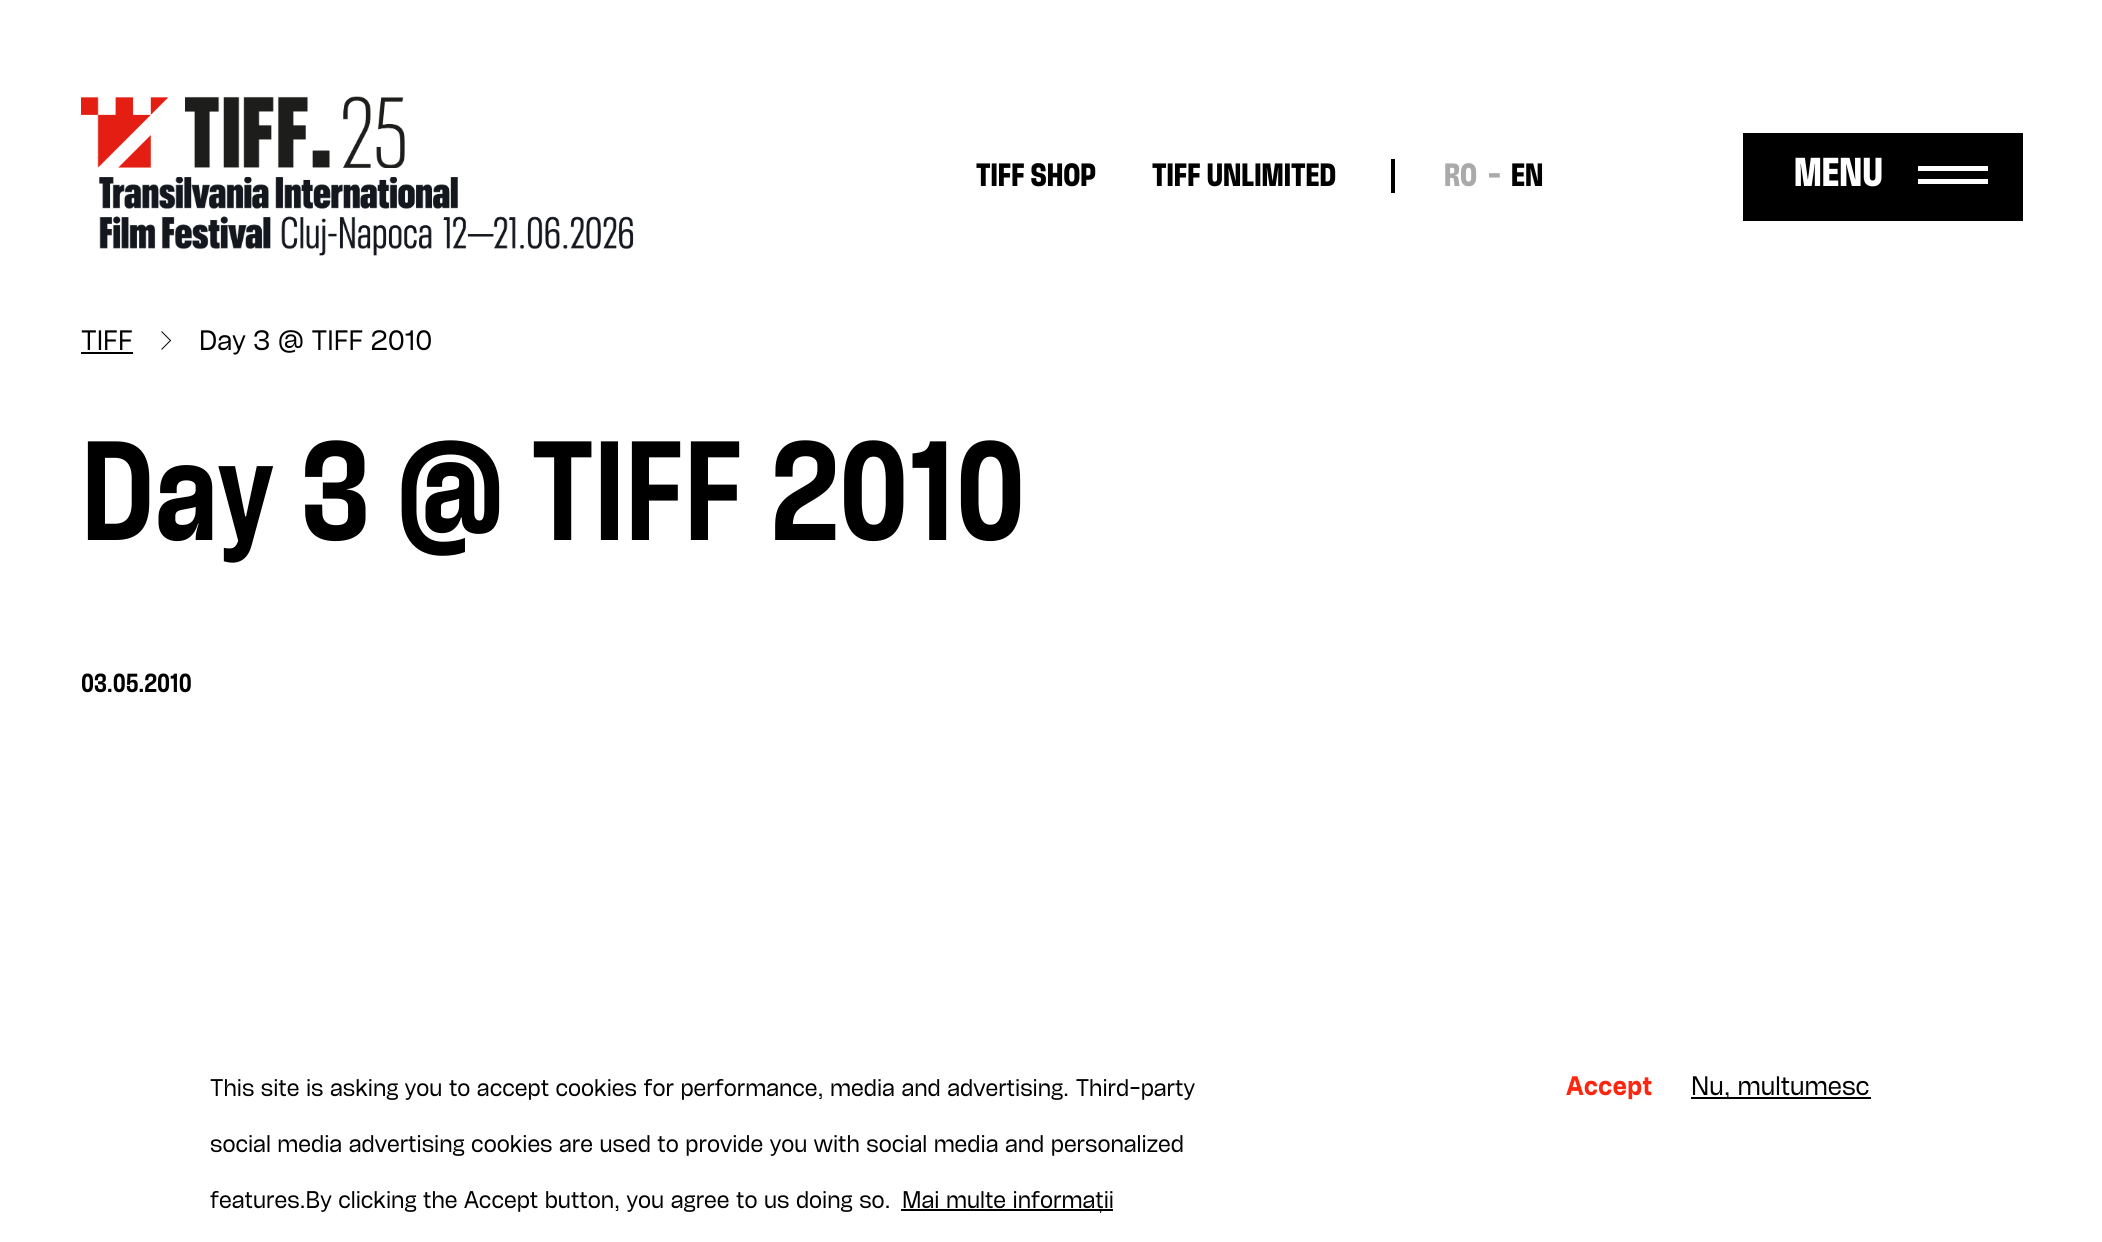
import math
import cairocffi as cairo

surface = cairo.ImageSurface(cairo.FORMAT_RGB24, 2102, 1242)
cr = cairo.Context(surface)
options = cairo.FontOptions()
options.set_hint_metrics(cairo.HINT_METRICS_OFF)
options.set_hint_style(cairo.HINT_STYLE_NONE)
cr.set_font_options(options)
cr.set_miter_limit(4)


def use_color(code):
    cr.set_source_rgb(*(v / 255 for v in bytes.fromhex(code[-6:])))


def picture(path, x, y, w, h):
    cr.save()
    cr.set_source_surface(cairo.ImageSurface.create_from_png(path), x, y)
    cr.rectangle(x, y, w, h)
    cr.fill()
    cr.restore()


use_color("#ffffff")
cr.paint()
picture("img1.png", 81, 96, 324, 72)
picture("img2.png", 99, 177, 535, 79)
cr.select_font_face("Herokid", cairo.FONT_SLANT_NORMAL, cairo.FONT_WEIGHT_BOLD)
cr.set_font_size(28)
use_color("#000000")
cr.move_to(976, 186)
cr.show_text("TIFF SHOP")
cr.move_to(1152, 186)
cr.show_text("TIFF UNLIMITED")
cr.rectangle(1391, 159, 4, 34)
cr.fill()
use_color("#aaaaaa")
cr.move_to(1444, 186)
cr.show_text("RO")
cr.move_to(1488, 186)
cr.show_text("-")
use_color("#000000")
cr.move_to(1511, 186)
cr.show_text("EN")
cr.rectangle(1743, 133, 280, 88)
cr.fill()
cr.set_font_size(35)
use_color("#ffffff")
cr.move_to(1794, 186)
cr.show_text("MENU")
cr.rectangle(1918, 166, 70, 5)
cr.fill()
cr.rectangle(1918, 179, 70, 5)
cr.fill()
cr.select_font_face("Herokid")
cr.set_font_size(24.5)
use_color("#000000")
cr.move_to(81, 350)
cr.show_text("TIFF")
cr.rectangle(81, 352, 52, 2)
cr.fill()
cr.new_path()
cr.move_to(161.5, 331.5)
cr.line_to(170.5, 340.5)
cr.line_to(161.5, 349.5)
cr.set_line_width(1)
cr.stroke()
cr.move_to(199, 350)
cr.show_text("Day 3 @ TIFF 2010")
cr.select_font_face("Herokid SemiBold")
cr.set_font_size(122.5)
cr.move_to(81, 540)
cr.show_text("Day 3 @ TIFF 2010")
cr.set_font_size(22.75)
cr.move_to(81, 692)
cr.show_text("03.05.2010")
cr.select_font_face("Herokid")
cr.set_font_size(21)
cr.move_to(210, 1096)
cr.show_text("This site is asking you to accept cookies for performance, media and advertising. Third-party")
cr.move_to(210, 1152)
cr.show_text("social media advertising cookies are used to provide you with social media and personalized")
cr.move_to(210, 1208)
cr.show_text("features.By clicking the Accept button, you agree to us doing so.")
cr.rectangle(901, 1209, 212, 2)
cr.fill()
cr.move_to(902, 1208)
cr.show_text("Mai multe informații")
cr.select_font_face("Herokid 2 SemiBold")
cr.set_font_size(23.25)
use_color("#ff260f")
cr.move_to(1566, 1095)
cr.show_text("Accept")
use_color("#000000")
cr.rectangle(1691, 1097, 180, 2)
cr.fill()
cr.select_font_face("Herokid")
cr.move_to(1691, 1095)
cr.show_text("Nu, multumesc")
surface.write_to_png("result.png")
